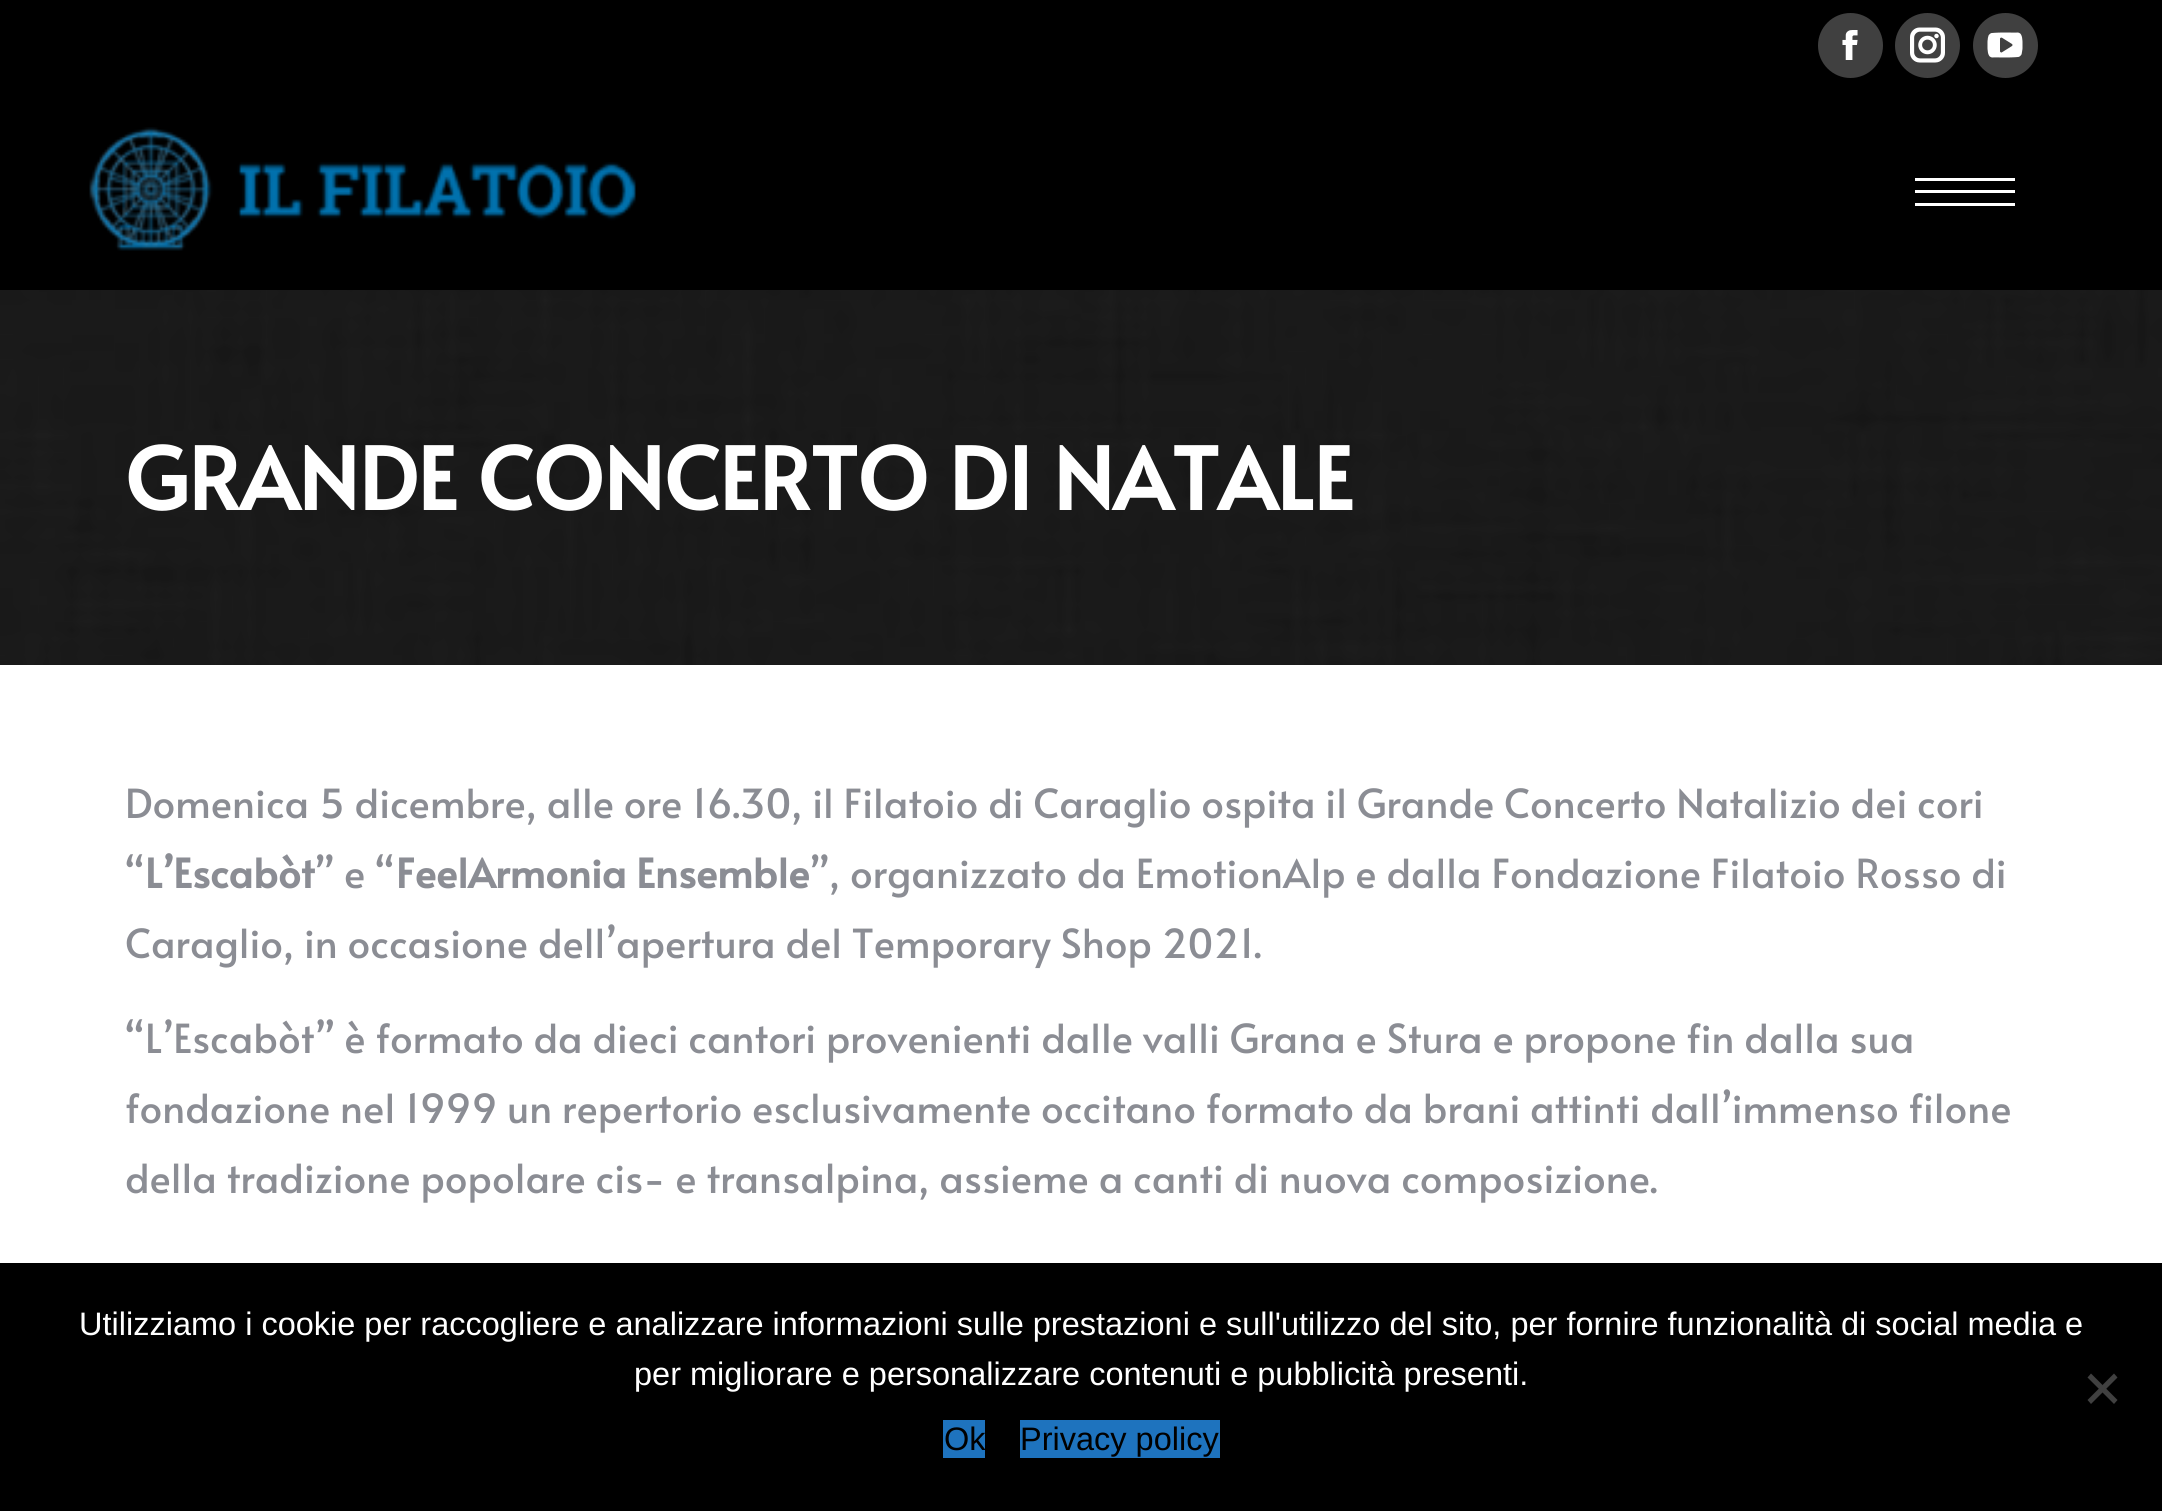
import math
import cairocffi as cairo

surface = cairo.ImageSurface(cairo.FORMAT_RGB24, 2162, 1511)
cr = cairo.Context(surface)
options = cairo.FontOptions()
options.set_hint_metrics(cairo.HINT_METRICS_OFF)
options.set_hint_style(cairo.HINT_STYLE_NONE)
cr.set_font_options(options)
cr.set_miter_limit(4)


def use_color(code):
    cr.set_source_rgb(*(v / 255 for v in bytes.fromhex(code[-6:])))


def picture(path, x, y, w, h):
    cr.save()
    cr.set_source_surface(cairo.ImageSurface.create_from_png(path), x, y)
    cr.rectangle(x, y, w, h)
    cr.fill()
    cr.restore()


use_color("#ffffff")
cr.paint()
use_color("#000000")
cr.rectangle(0, 0, 2162, 290)
cr.fill()
use_color("#404040")
cr.arc(1850.5, 45.5, 32.5, 0, 2 * math.pi)
cr.fill()
picture("img1.png", 1842, 30, 16, 30)
cr.arc(1927.5, 45.5, 32.5, 0, 2 * math.pi)
cr.fill()
picture("img2.png", 1910, 27, 35, 36)
cr.arc(2005.5, 45.5, 32.5, 0, 2 * math.pi)
cr.fill()
picture("img3.png", 1987, 32, 36, 26)
picture("img4.png", 89, 127, 547, 124)
use_color("#ffffff")
cr.rectangle(1915, 178, 100, 3)
cr.fill()
cr.rectangle(1915, 190, 100, 3)
cr.fill()
cr.rectangle(1915, 203, 100, 3)
cr.fill()
picture("img5.png", 0, 290, 2162, 375)
cr.select_font_face("Alata", cairo.FONT_SLANT_NORMAL, cairo.FONT_WEIGHT_BOLD)
cr.set_font_size(85)
cr.move_to(125, 510)
cr.show_text("GRANDE CONCERTO DI NATALE")
cr.select_font_face("Alata")
cr.set_font_size(40)
use_color("#8b8d94")
cr.move_to(125, 818)
cr.show_text("Domenica 5 dicembre, alle ore 16.30, il Filatoio di Caraglio ospita il Grande Concerto Natalizio dei cori")
cr.move_to(125, 888)
cr.show_text("“")
cr.select_font_face("Alata", cairo.FONT_SLANT_NORMAL, cairo.FONT_WEIGHT_BOLD)
cr.move_to(145, 888)
cr.show_text("L’Escabòt")
cr.select_font_face("Alata")
cr.move_to(314, 888)
cr.show_text("” e “")
cr.select_font_face("Alata", cairo.FONT_SLANT_NORMAL, cairo.FONT_WEIGHT_BOLD)
cr.move_to(396, 888)
cr.show_text("FeelArmonia Ensemble")
cr.select_font_face("Alata")
cr.move_to(809, 888)
cr.show_text("”, organizzato da EmotionAlp e dalla Fondazione Filatoio Rosso di")
cr.move_to(125, 958)
cr.show_text("Caraglio, in occasione dell’apertura del Temporary Shop 2021.")
cr.move_to(125, 1053)
cr.show_text("“L’Escabòt” è formato da dieci cantori provenienti dalle valli Grana e Stura e propone fin dalla sua")
cr.move_to(125, 1123)
cr.show_text("fondazione nel 1999 un repertorio esclusivamente occitano formato da brani attinti dall’immenso filone")
cr.move_to(125, 1193)
cr.show_text("della tradizione popolare cis- e transalpina, assieme a canti di nuova composizione.")
use_color("#000000")
cr.rectangle(0, 1263, 2162, 248)
cr.fill()
cr.select_font_face("Liberation Sans")
cr.set_font_size(32.5)
use_color("#ffffff")
cr.move_to(79, 1335)
cr.show_text("Utilizziamo i cookie per raccogliere e analizzare informazioni sulle prestazioni e sull'utilizzo del sito, per fornire funzionalità di social media e")
cr.move_to(634, 1385)
cr.show_text("per migliorare e personalizzare contenuti e pubblicità presenti.")
use_color("#404040")
cr.new_path()
cr.move_to(2114, 1373.5)
cr.line_to(2117.5, 1377.5)
cr.line_to(2091, 1404)
cr.line_to(2087.5, 1400)
cr.close_path()
cr.fill()
cr.new_path()
cr.move_to(2087.5, 1377.5)
cr.line_to(2091, 1373.5)
cr.line_to(2117.5, 1400)
cr.line_to(2114, 1404)
cr.close_path()
cr.fill()
use_color("#1e73be")
cr.rectangle(943, 1420, 42, 38)
cr.fill()
use_color("#000000")
cr.move_to(944, 1450)
cr.show_text("Ok")
use_color("#1e73be")
cr.rectangle(1020, 1420, 200, 38)
cr.fill()
use_color("#000000")
cr.move_to(1020, 1450)
cr.show_text("Privacy policy")
surface.write_to_png("result.png")
